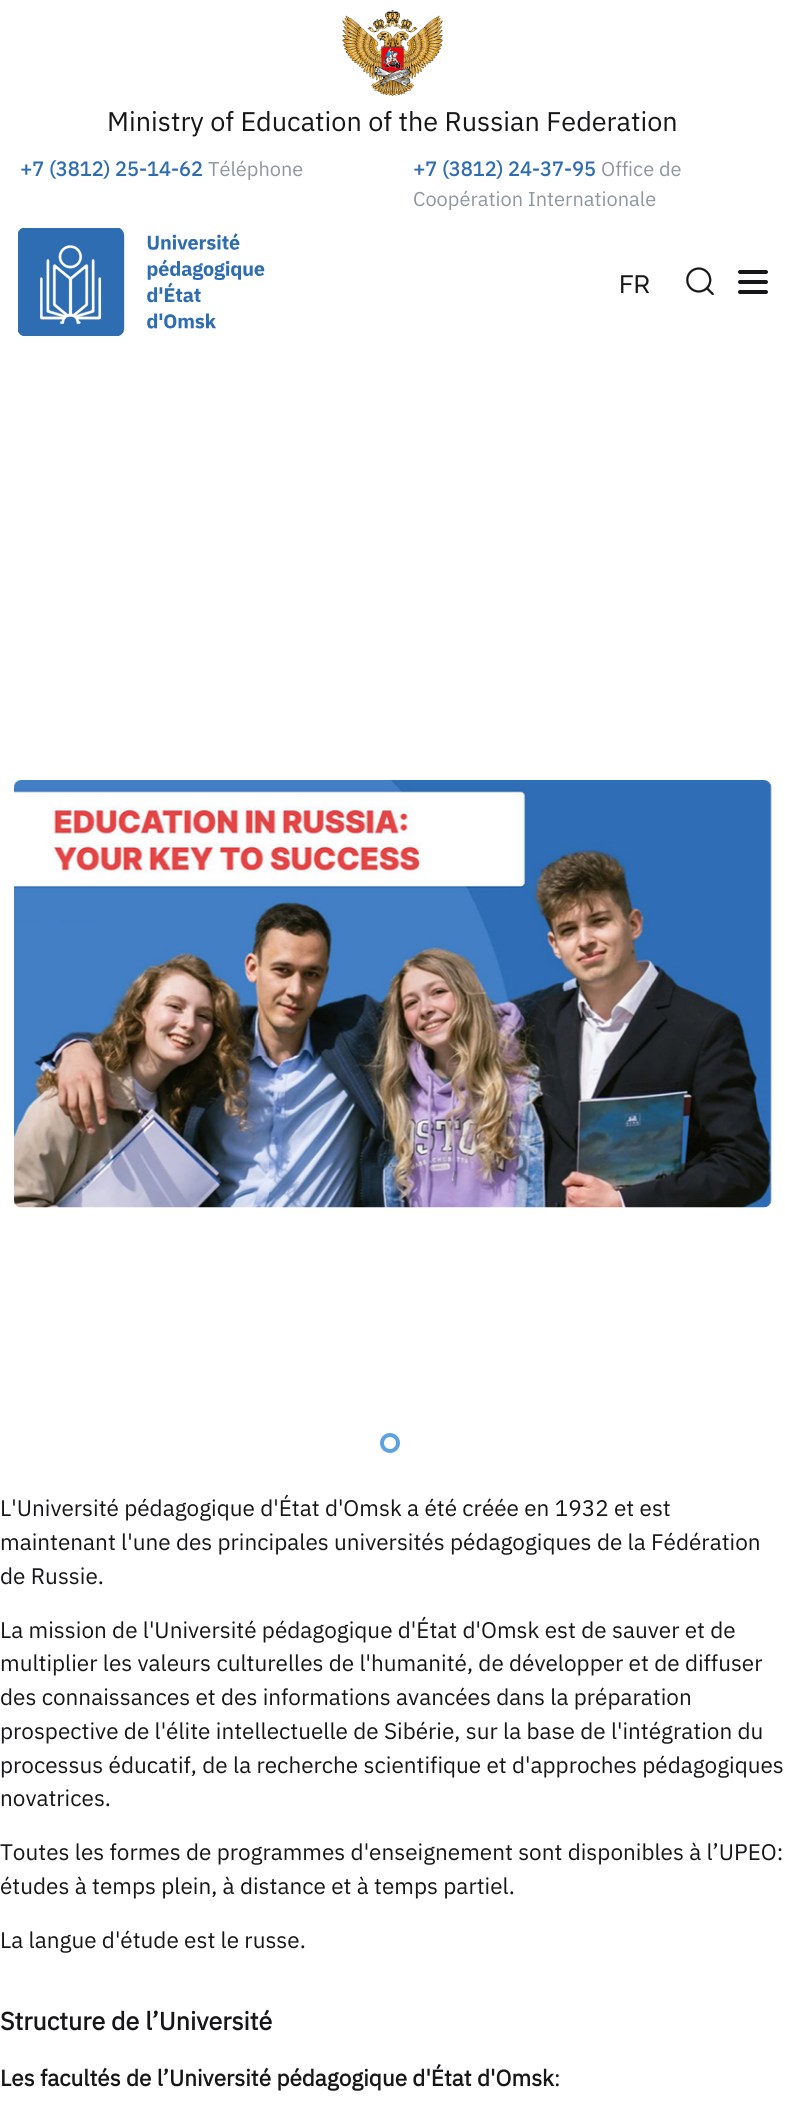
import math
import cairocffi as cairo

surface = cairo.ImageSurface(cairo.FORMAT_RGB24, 785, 2116)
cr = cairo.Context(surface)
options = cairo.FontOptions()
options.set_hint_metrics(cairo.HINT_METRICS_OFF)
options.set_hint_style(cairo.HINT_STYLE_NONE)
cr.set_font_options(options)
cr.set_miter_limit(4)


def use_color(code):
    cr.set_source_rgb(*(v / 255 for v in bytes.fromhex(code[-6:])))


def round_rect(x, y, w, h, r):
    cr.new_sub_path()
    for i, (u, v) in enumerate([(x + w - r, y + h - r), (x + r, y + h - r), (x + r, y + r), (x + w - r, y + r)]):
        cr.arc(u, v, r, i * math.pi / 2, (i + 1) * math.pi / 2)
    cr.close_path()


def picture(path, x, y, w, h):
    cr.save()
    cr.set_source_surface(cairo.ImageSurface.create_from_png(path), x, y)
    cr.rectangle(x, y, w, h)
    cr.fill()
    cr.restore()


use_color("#ffffff")
cr.paint()
picture("img1.png", 342, 10, 101, 86)
cr.select_font_face("IBM Plex Sans")
cr.set_font_size(27)
use_color("#161618")
cr.move_to(107, 131)
cr.show_text("Ministry of Education of the Russian Federation")
cr.select_font_face("IBM Plex Sans", cairo.FONT_SLANT_NORMAL, cairo.FONT_WEIGHT_BOLD)
cr.set_font_size(20)
use_color("#2f6db3")
cr.move_to(20, 176)
cr.show_text("+7 (3812) 25-14-62")
cr.select_font_face("IBM Plex Sans")
use_color("#8f96a1")
cr.move_to(208, 176)
cr.show_text("Téléphone")
cr.select_font_face("IBM Plex Sans", cairo.FONT_SLANT_NORMAL, cairo.FONT_WEIGHT_BOLD)
use_color("#2f6db3")
cr.move_to(413, 176)
cr.show_text("+7 (3812) 24-37-95")
cr.select_font_face("IBM Plex Sans")
use_color("#8f96a1")
cr.move_to(601, 176)
cr.show_text("Office de")
cr.move_to(413, 206)
cr.show_text("Coopération Internationale")
picture("img2.png", 18, 228, 247, 108)
cr.select_font_face("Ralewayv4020 Medium")
cr.set_font_size(25)
use_color("#161618")
cr.move_to(619, 293)
cr.show_text("FR")
picture("img3.png", 686, 267, 28, 29)
round_rect(738, 270, 30, 4, 2)
cr.fill()
round_rect(738, 280, 30, 4, 2)
cr.fill()
round_rect(738, 290, 30, 4, 2)
cr.fill()
picture("img4.png", 14, 780, 758, 428)
cr.arc(390, 1443, 8, 0, 2 * math.pi)
use_color("#5ea3e1")
cr.set_line_width(4)
cr.stroke()
cr.select_font_face("IBM Plex Sans")
cr.set_font_size(22.5)
use_color("#161618")
cr.move_to(0, 1516)
cr.show_text("L'Université pédagogique d'État d'Omsk a été créée en 1932 et est")
cr.move_to(0, 1550)
cr.show_text("maintenant l'une des principales universités pédagogiques de la Fédération")
cr.move_to(0, 1584)
cr.show_text("de Russie.")
cr.move_to(0, 1638)
cr.show_text("La mission de l'Université pédagogique d'État d'Omsk est de sauver et de")
cr.move_to(0, 1671)
cr.show_text("multiplier les valeurs culturelles de l'humanité, de développer et de diffuser")
cr.move_to(0, 1705)
cr.show_text("des connaissances et des informations avancées dans la préparation")
cr.move_to(0, 1739)
cr.show_text("prospective de l'élite intellectuelle de Sibérie, sur la base de l'intégration du")
cr.move_to(0, 1773)
cr.show_text("processus éducatif, de la recherche scientifique et d'approches pédagogiques")
cr.move_to(0, 1806)
cr.show_text("novatrices.")
cr.move_to(0, 1860)
cr.show_text("Toutes les formes de programmes d'enseignement sont disponibles à l’UPEO:")
cr.move_to(0, 1894)
cr.show_text("études à temps plein, à distance et à temps partiel.")
cr.move_to(0, 1948)
cr.show_text("La langue d'étude est le russe.")
cr.select_font_face("IBM Plex Sans", cairo.FONT_SLANT_NORMAL, cairo.FONT_WEIGHT_BOLD)
cr.set_font_size(25)
cr.move_to(0, 2030)
cr.show_text("Structure de l’Université")
cr.set_font_size(22.5)
cr.move_to(0, 2086)
cr.show_text("Les facultés de l’Université pédagogique d'État d'Omsk")
cr.select_font_face("IBM Plex Sans")
cr.move_to(554, 2086)
cr.show_text(":")
surface.write_to_png("result.png")
